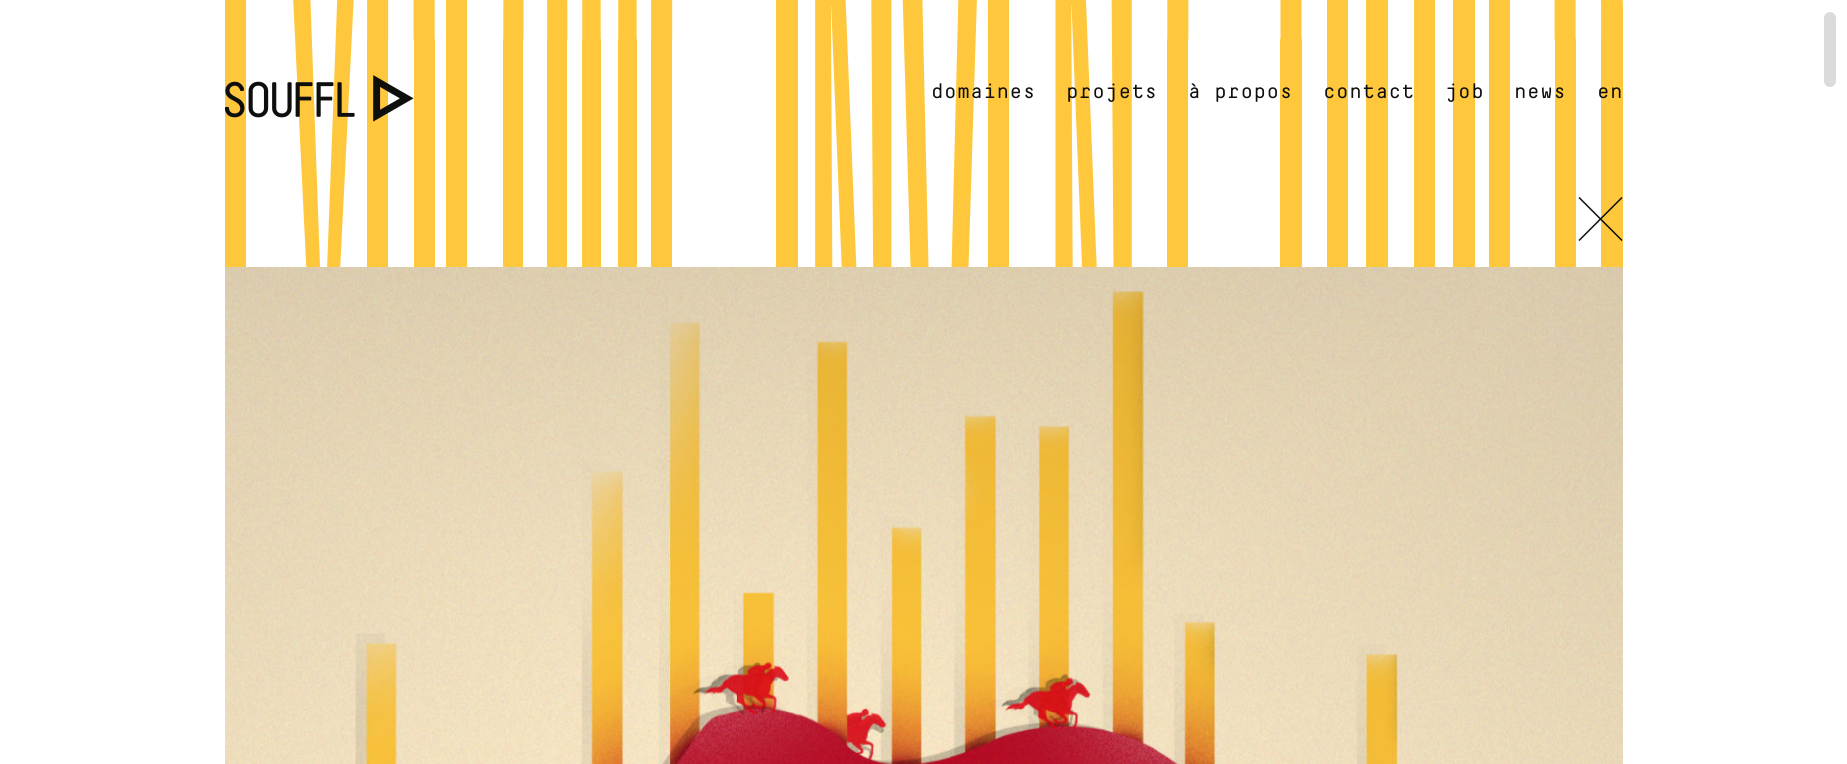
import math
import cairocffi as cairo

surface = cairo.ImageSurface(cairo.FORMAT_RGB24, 1847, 764)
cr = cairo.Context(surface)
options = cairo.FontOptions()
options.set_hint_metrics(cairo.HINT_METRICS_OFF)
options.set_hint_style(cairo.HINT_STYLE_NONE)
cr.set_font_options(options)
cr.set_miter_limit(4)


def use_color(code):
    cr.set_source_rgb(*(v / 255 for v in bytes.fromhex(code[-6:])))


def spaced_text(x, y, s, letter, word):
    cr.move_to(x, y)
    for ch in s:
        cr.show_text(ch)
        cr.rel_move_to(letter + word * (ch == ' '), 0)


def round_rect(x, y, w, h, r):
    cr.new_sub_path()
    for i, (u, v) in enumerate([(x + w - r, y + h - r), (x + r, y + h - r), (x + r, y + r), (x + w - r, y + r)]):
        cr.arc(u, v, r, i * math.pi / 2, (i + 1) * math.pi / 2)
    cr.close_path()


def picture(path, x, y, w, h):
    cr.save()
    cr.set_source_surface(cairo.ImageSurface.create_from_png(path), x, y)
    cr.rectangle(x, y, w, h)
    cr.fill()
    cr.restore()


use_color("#ffffff")
cr.paint()
picture("img1.png", 225, 0, 1398, 267)
use_color("#dbdbdb")
round_rect(1824, 12, 12, 75, 6)
cr.fill()
cr.new_path()
cr.move_to(1622, 197.5)
cr.line_to(1579, 240.5)
cr.move_to(1622, 240.5)
cr.line_to(1579, 197.5)
use_color("#0e0e0c")
cr.set_line_width(1.5)
cr.stroke()
picture("img2.png", 225, 267, 1398, 497)
picture("img3.png", 225, 75, 189, 47)
cr.select_font_face("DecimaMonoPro")
cr.set_font_size(21)
spaced_text(931, 98, "domaines", 0.5, 0)
spaced_text(1066, 98, "projets", 0.5, 0)
spaced_text(1188, 98, "à propos", 0.5, 0)
spaced_text(1323, 98, "contact", 0.5, 0)
spaced_text(1445, 98, "job", 0.5, 0)
spaced_text(1514, 98, "news", 0.5, 0)
spaced_text(1597, 98, "en", 0.5, 0)
surface.write_to_png("result.png")
